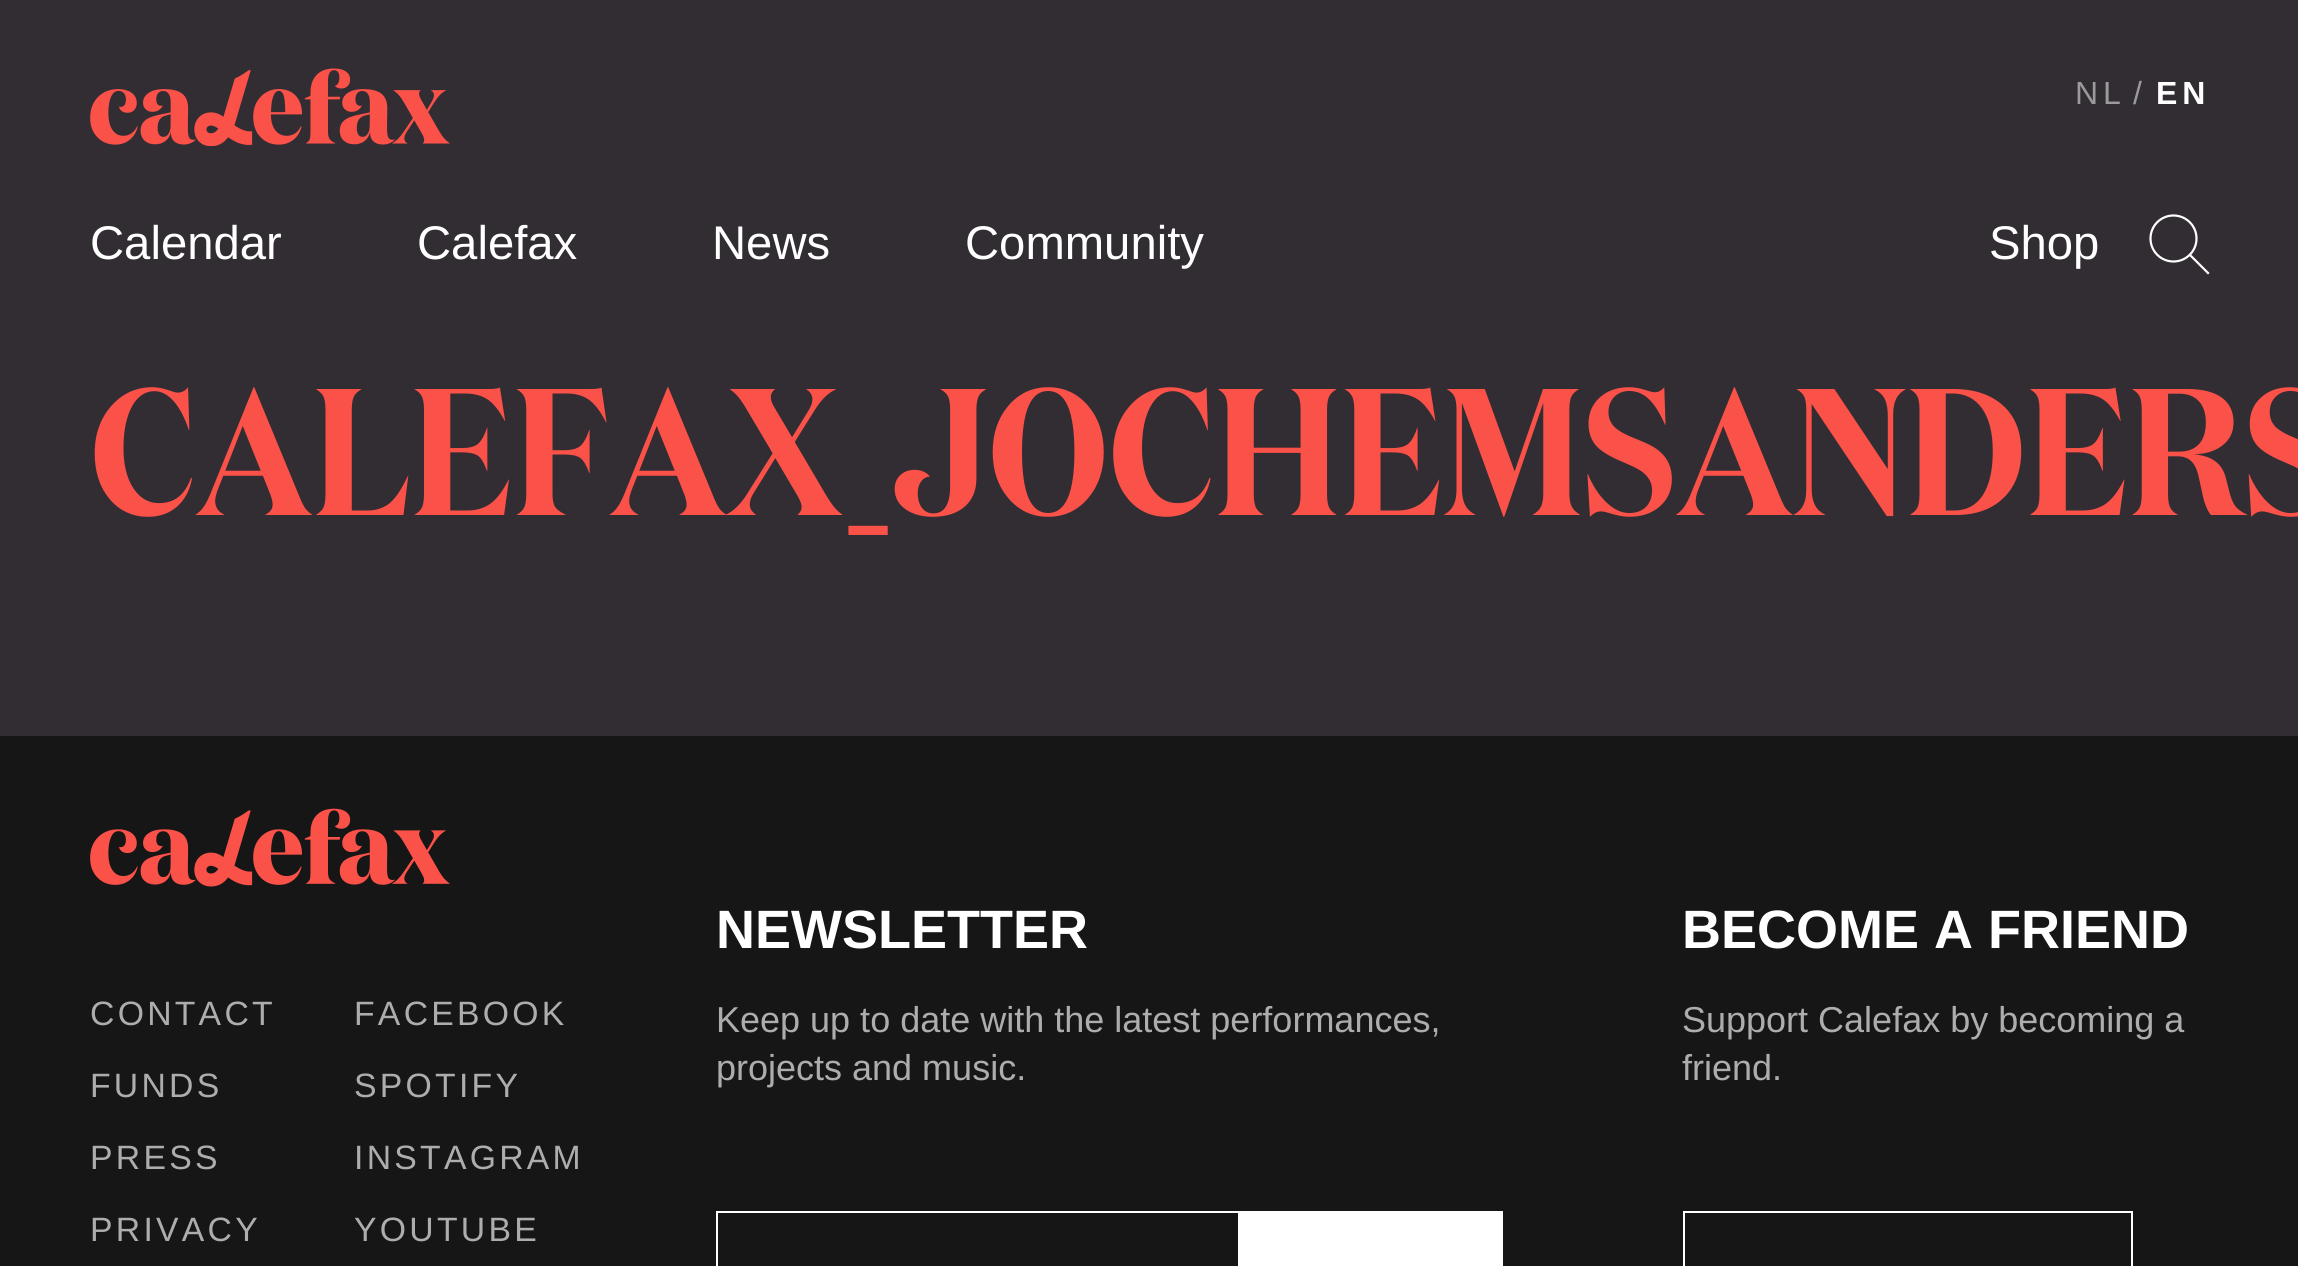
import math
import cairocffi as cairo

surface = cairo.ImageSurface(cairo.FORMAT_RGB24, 2298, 1266)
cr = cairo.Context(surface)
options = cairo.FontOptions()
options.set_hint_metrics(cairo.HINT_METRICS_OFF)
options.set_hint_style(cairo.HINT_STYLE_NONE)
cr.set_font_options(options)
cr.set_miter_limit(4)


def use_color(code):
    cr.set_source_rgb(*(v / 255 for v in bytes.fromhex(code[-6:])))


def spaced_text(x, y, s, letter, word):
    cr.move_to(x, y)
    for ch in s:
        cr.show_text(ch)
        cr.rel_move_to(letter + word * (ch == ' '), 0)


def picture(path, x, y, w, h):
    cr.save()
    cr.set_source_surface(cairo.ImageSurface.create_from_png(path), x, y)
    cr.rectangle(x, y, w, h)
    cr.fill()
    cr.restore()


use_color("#322c33")
cr.paint()
picture("img1.png", 90, 68, 360, 78)
cr.select_font_face("Liberation Sans")
cr.set_font_size(32)
use_color("#9b9b9b")
spaced_text(2075, 104, "NL", 5, 0)
spaced_text(2133, 104, "/", 5, 0)
cr.select_font_face("Liberation Sans", cairo.FONT_SLANT_NORMAL, cairo.FONT_WEIGHT_BOLD)
use_color("#ffffff")
spaced_text(2156, 104, "EN", 5, 0)
cr.select_font_face("Liberation Sans")
cr.set_font_size(47.25)
cr.move_to(90, 259)
cr.show_text("Calendar")
cr.move_to(417, 259)
cr.show_text("Calefax")
cr.move_to(712, 259)
cr.show_text("News")
cr.move_to(965, 259)
cr.show_text("Community")
cr.move_to(1989, 259)
cr.show_text("Shop")
cr.new_path()
cr.arc(2173.5, 238.5, 23, 0, 2 * math.pi)
cr.set_line_width(2.2)
cr.stroke()
cr.new_path()
cr.move_to(2190, 255)
cr.line_to(2208, 273)
cr.set_line_cap(cairo.LINE_CAP_SQUARE)
cr.stroke()
cr.select_font_face("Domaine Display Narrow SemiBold")
cr.set_font_size(180)
use_color("#fa5149")
cr.move_to(90, 515)
cr.show_text("CALEFAX_JOCHEMSANDERS")
use_color("#161616")
cr.rectangle(0, 736, 2298, 530)
cr.fill()
picture("img2.png", 90, 808, 360, 79)
cr.select_font_face("Liberation Sans")
cr.set_font_size(33.75)
use_color("#adadad")
spaced_text(90, 1025, "CONTACT", 3.25, 0)
spaced_text(90, 1097, "FUNDS", 3.25, 0)
spaced_text(90, 1169, "PRESS", 3.25, 0)
spaced_text(90, 1241, "PRIVACY", 3.25, 0)
spaced_text(354, 1025, "FACEBOOK", 3.25, 0)
spaced_text(354, 1097, "SPOTIFY", 3.25, 0)
spaced_text(354, 1169, "INSTAGRAM", 3.25, 0)
spaced_text(354, 1241, "YOUTUBE", 3.25, 0)
cr.select_font_face("Liberation Sans", cairo.FONT_SLANT_NORMAL, cairo.FONT_WEIGHT_BOLD)
cr.set_font_size(54)
use_color("#ffffff")
cr.move_to(716, 948)
cr.show_text("NEWSLETTER")
cr.select_font_face("Liberation Sans")
cr.set_font_size(36)
use_color("#adadad")
cr.move_to(716, 1032)
cr.show_text("Keep up to date with the latest performances,")
cr.move_to(716, 1080)
cr.show_text("projects and music.")
use_color("#ffffff")
cr.rectangle(716, 1211, 522, 2)
cr.fill()
cr.rectangle(716, 1211, 2, 55)
cr.fill()
cr.rectangle(1238, 1211, 265, 55)
cr.fill()
cr.select_font_face("Liberation Sans", cairo.FONT_SLANT_NORMAL, cairo.FONT_WEIGHT_BOLD)
cr.set_font_size(54)
cr.move_to(1682, 948)
cr.show_text("BECOME A FRIEND")
cr.select_font_face("Liberation Sans")
cr.set_font_size(36)
use_color("#adadad")
cr.move_to(1682, 1032)
cr.show_text("Support Calefax by becoming a")
cr.move_to(1682, 1080)
cr.show_text("friend.")
cr.rectangle(1684, 1212, 448, 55)
use_color("#ffffff")
cr.set_line_width(2)
cr.set_line_cap(cairo.LINE_CAP_BUTT)
cr.stroke()
surface.write_to_png("result.png")
